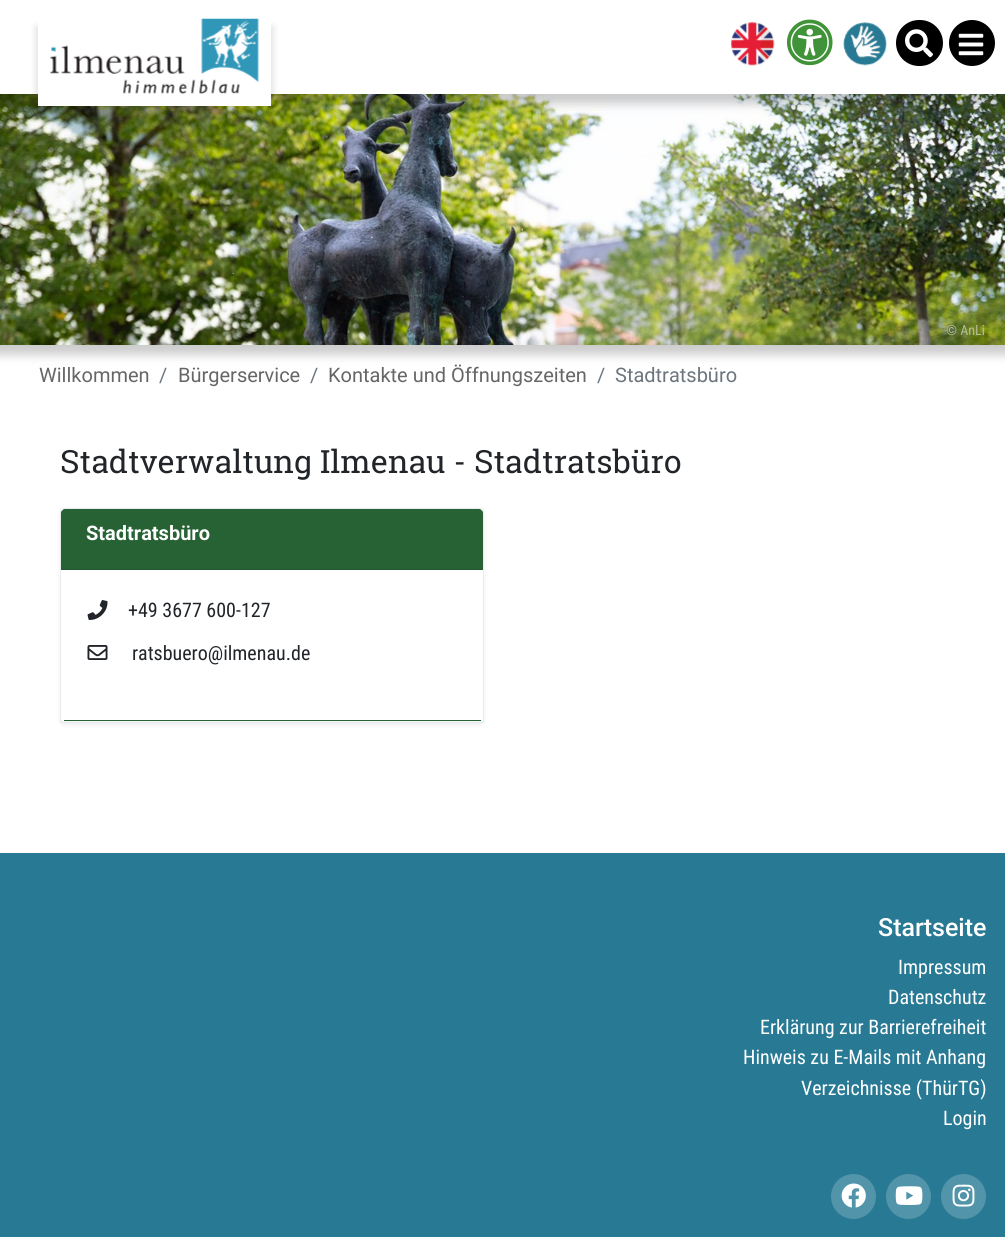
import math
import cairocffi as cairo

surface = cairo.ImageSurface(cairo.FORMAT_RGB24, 1005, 1237)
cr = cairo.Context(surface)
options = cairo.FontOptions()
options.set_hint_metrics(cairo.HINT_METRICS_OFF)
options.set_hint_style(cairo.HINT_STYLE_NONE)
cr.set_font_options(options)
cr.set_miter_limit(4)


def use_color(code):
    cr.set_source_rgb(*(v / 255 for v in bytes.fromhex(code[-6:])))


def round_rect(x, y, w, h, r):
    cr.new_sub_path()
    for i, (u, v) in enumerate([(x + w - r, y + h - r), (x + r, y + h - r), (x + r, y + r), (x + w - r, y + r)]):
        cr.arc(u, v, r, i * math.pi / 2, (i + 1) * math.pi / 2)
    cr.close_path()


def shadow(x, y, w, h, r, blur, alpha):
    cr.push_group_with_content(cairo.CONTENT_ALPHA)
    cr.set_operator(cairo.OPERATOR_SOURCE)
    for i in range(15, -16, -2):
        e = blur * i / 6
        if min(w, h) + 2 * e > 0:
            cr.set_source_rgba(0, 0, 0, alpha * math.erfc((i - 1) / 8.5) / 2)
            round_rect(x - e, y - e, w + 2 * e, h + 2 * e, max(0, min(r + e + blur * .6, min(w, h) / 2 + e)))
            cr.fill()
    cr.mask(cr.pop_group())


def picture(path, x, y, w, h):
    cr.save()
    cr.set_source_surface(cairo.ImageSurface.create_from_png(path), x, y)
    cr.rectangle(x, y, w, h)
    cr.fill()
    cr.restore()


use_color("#ffffff")
cr.paint()
use_color("#000000")
shadow(-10, 84, 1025, 271, 0, 5, 0.2)
picture("img7.png", 0, 94, 1005, 251)
shadow(-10, -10, 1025, 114, 0, 5, 0.2)
use_color("#ffffff")
cr.rectangle(0, 0, 1005, 94)
cr.fill()
use_color("#000000")
shadow(35, 26, 239, 93, 0, 3, 0.1)
use_color("#ffffff")
cr.rectangle(38, 22, 233, 84)
cr.fill()
picture("img1.png", 50, 18, 209, 76)
picture("img2.png", 731, 22, 44, 44)
picture("img3.png", 787, 19, 46, 47)
picture("img4.png", 843, 22, 44, 44)
use_color("#000000")
round_rect(896, 20, 47, 46, 23)
cr.fill()
picture("img5.png", 905, 29, 28, 29)
cr.arc(972, 43, 23, 0, 2 * math.pi)
cr.fill()
picture("img6.png", 958, 33, 26, 23)
cr.select_font_face("Roboto Condensed")
cr.set_font_size(14)
use_color("#b3bd95")
cr.move_to(946, 335)
cr.show_text("© AnLi")
cr.select_font_face("Roboto")
cr.set_font_size(20)
use_color("#666666")
cr.move_to(39, 382)
cr.show_text("Willkommen")
use_color("#6c757d")
cr.move_to(159, 382)
cr.show_text("/")
use_color("#666666")
cr.move_to(178, 382)
cr.show_text("Bürgerservice")
use_color("#6c757d")
cr.move_to(310, 382)
cr.show_text("/")
use_color("#666666")
cr.move_to(328, 382)
cr.show_text("Kontakte und Öffnungszeiten")
use_color("#6c757d")
cr.move_to(597, 382)
cr.show_text("/")
cr.move_to(615, 382)
cr.show_text("Stadtratsbüro")
cr.select_font_face("Roboto Slab")
cr.set_font_size(32)
use_color("#212529")
cr.move_to(60, 473)
cr.show_text("Stadtverwaltung Ilmenau - Stadtratsbüro")
use_color("#000000")
shadow(60, 510, 424, 215, 5, 2.5, 0.07)
use_color("#f5f8fb")
round_rect(60, 508, 424, 215, 5)
cr.fill()
cr.rectangle(60.5, 508.5, 423, 214)
cr.set_source_rgba(0, 0, 0, 0.05)
cr.set_line_width(1)
cr.stroke()
use_color("#276235")
cr.new_path()
cr.move_to(65, 509)
cr.line_to(479, 509)
cr.curve_to(481, 509, 483, 511, 483, 513)
cr.line_to(483, 570)
cr.line_to(61, 570)
cr.line_to(61, 513)
cr.curve_to(61, 511, 63, 509, 65, 509)
cr.close_path()
cr.fill()
use_color("#22562e")
cr.rectangle(61, 569, 422, 1)
cr.fill()
cr.select_font_face("Roboto", cairo.FONT_SLANT_NORMAL, cairo.FONT_WEIGHT_BOLD)
cr.set_font_size(20)
use_color("#ffffff")
cr.move_to(86, 540)
cr.show_text("Stadtratsbüro")
cr.rectangle(61, 570, 422, 120)
cr.fill()
picture("img8.png", 87, 600, 21, 20)
cr.select_font_face("Roboto Condensed")
use_color("#212529")
cr.move_to(128, 617)
cr.show_text("+49 3677 600-127")
picture("img9.png", 87, 645, 21, 15)
cr.move_to(132, 660)
cr.show_text("ratsbuero@ilmenau.de")
use_color("#ffffff")
cr.new_path()
cr.move_to(61, 690)
cr.line_to(483, 690)
cr.line_to(483, 717)
cr.curve_to(483, 719, 481, 721, 479, 721)
cr.line_to(65, 721)
cr.curve_to(63, 721, 61, 719, 61, 717)
cr.close_path()
cr.fill()
use_color("#276235")
cr.rectangle(64, 720, 417, 1)
cr.fill()
use_color("#277994")
cr.rectangle(0, 853, 1005, 384)
cr.fill()
cr.select_font_face("Roboto Medium")
cr.set_font_size(25)
use_color("#ffffff")
cr.move_to(878, 936)
cr.show_text("Startseite")
cr.select_font_face("Roboto Condensed")
cr.set_font_size(20)
cr.move_to(898, 974)
cr.show_text("Impressum")
cr.move_to(888, 1004)
cr.show_text("Datenschutz")
cr.move_to(760, 1034)
cr.show_text("Erklärung zur Barrierefreiheit")
cr.move_to(743, 1064)
cr.show_text("Hinweis zu E-Mails mit Anhang")
cr.move_to(801, 1095)
cr.show_text("Verzeichnisse (ThürTG)")
cr.move_to(943, 1125)
cr.show_text("Login")
use_color("#5294a9")
cr.new_path()
cr.arc(853.5, 1196.5, 22.5, 0, 2 * math.pi)
cr.fill()
picture("img10.png", 841, 1183, 25, 25)
cr.arc(908.5, 1196.5, 22.5, 0, 2 * math.pi)
cr.fill()
picture("img11.png", 895, 1186, 28, 19)
cr.arc(963.5, 1196.5, 22.5, 0, 2 * math.pi)
cr.fill()
picture("img12.png", 952, 1184, 23, 23)
surface.write_to_png("result.png")
